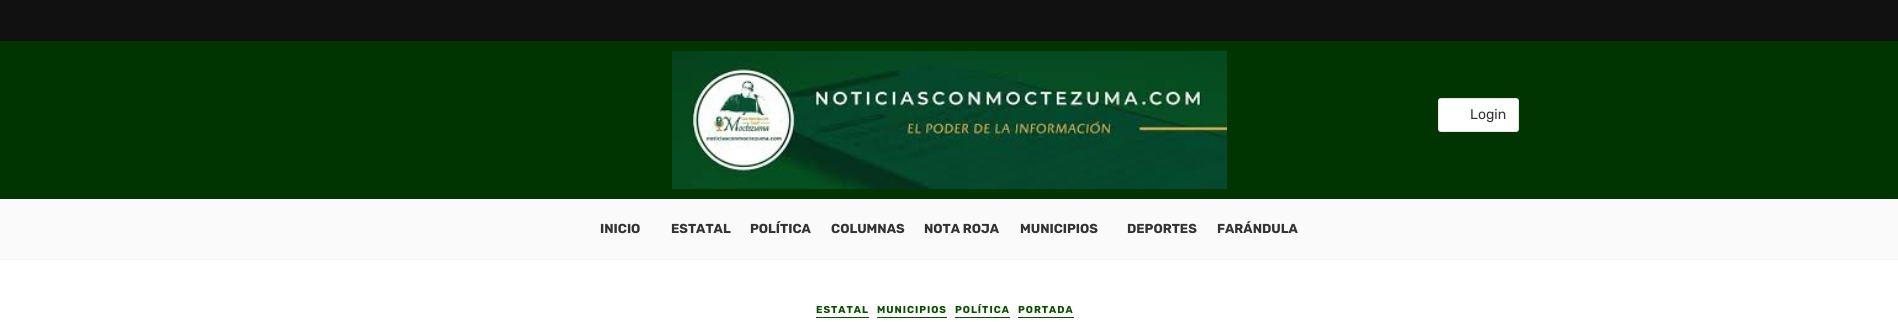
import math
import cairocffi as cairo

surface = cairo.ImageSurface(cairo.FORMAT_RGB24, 1898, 322)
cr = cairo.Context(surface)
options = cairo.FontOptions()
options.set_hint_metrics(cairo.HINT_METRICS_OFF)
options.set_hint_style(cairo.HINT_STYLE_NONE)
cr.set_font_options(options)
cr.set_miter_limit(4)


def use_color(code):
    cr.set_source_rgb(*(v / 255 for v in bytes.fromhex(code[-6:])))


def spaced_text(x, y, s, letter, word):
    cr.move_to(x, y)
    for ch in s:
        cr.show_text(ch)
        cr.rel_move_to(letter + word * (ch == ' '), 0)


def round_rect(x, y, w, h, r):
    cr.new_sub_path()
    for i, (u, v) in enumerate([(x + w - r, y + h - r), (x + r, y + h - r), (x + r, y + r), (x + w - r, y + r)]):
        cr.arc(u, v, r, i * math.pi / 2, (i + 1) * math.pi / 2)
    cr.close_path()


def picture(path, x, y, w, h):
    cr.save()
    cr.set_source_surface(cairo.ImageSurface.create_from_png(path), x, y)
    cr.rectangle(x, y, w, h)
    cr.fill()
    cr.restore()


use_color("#ffffff")
cr.paint()
use_color("#f5f5f5")
cr.rectangle(0, 259, 1898, 1)
cr.fill()
use_color("#111111")
cr.rectangle(0, 0, 1898, 41)
cr.fill()
use_color("#003502")
cr.rectangle(0, 41, 1898, 157)
cr.fill()
picture("img1.png", 672, 51, 555, 138)
use_color("#ffffff")
round_rect(1438, 98, 81, 34, 3)
cr.fill()
round_rect(1438.5, 98.5, 80, 33, 2.5)
cr.set_source_rgba(0, 0, 0, 0.1)
cr.set_line_width(1)
cr.stroke()
cr.select_font_face("Rubik")
cr.set_font_size(14)
use_color("#333333")
cr.move_to(1470, 119)
cr.show_text("Login")
use_color("#003202")
cr.rectangle(0, 198, 1898, 1)
cr.fill()
use_color("#fafafa")
cr.rectangle(0, 199, 1898, 60)
cr.fill()
cr.select_font_face("Rubik", cairo.FONT_SLANT_NORMAL, cairo.FONT_WEIGHT_BOLD)
cr.set_font_size(13)
use_color("#333333")
cr.move_to(600, 233)
cr.show_text("INICIO")
cr.move_to(671, 233)
cr.show_text("ESTATAL")
cr.move_to(750, 233)
cr.show_text("POLÍTICA")
cr.move_to(831, 233)
cr.show_text("COLUMNAS")
cr.move_to(924, 233)
cr.show_text("NOTA ROJA")
cr.move_to(1020, 233)
cr.show_text("MUNICIPIOS")
cr.move_to(1127, 233)
cr.show_text("DEPORTES")
cr.move_to(1217, 233)
cr.show_text("FARÁNDULA")
use_color("#0a4c00")
cr.rectangle(816, 317, 53, 1)
cr.fill()
cr.set_font_size(10)
spaced_text(816, 313, "ESTATAL", 1, 0)
cr.rectangle(877, 317, 70, 1)
cr.fill()
spaced_text(877, 313, "MUNICIPIOS", 1, 0)
cr.rectangle(955, 317, 55, 1)
cr.fill()
spaced_text(955, 313, "POLÍTICA", 1, 0)
cr.rectangle(1018, 317, 56, 1)
cr.fill()
spaced_text(1018, 313, "PORTADA", 1, 0)
surface.write_to_png("result.png")
